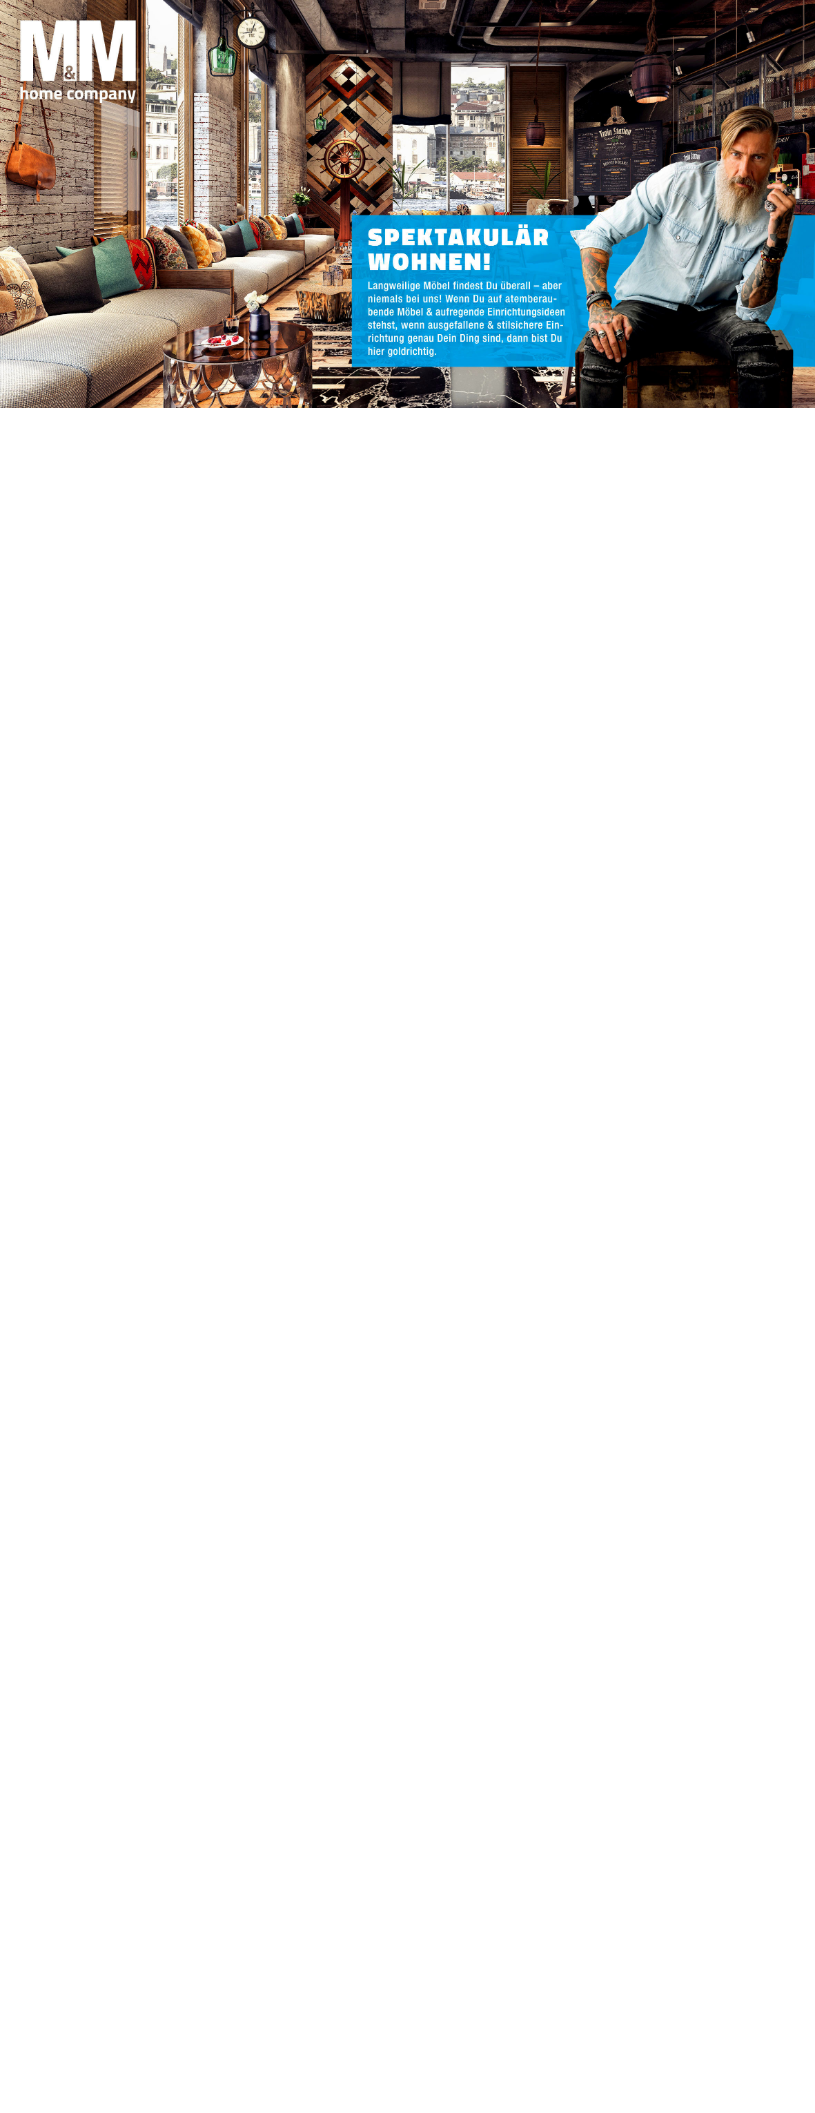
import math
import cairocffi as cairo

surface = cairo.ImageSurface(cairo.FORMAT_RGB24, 815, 2113)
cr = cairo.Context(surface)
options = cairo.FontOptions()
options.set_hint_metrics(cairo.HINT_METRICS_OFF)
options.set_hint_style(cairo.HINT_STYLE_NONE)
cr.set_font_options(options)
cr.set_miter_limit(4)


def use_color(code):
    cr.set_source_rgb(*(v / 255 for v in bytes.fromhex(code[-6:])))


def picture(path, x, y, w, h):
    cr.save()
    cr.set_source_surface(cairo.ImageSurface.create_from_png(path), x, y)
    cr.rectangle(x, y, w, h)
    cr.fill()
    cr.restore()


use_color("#ffffff")
cr.paint()
picture("img1.png", 0, 0, 815, 408)
surface.write_to_png("result.png")
